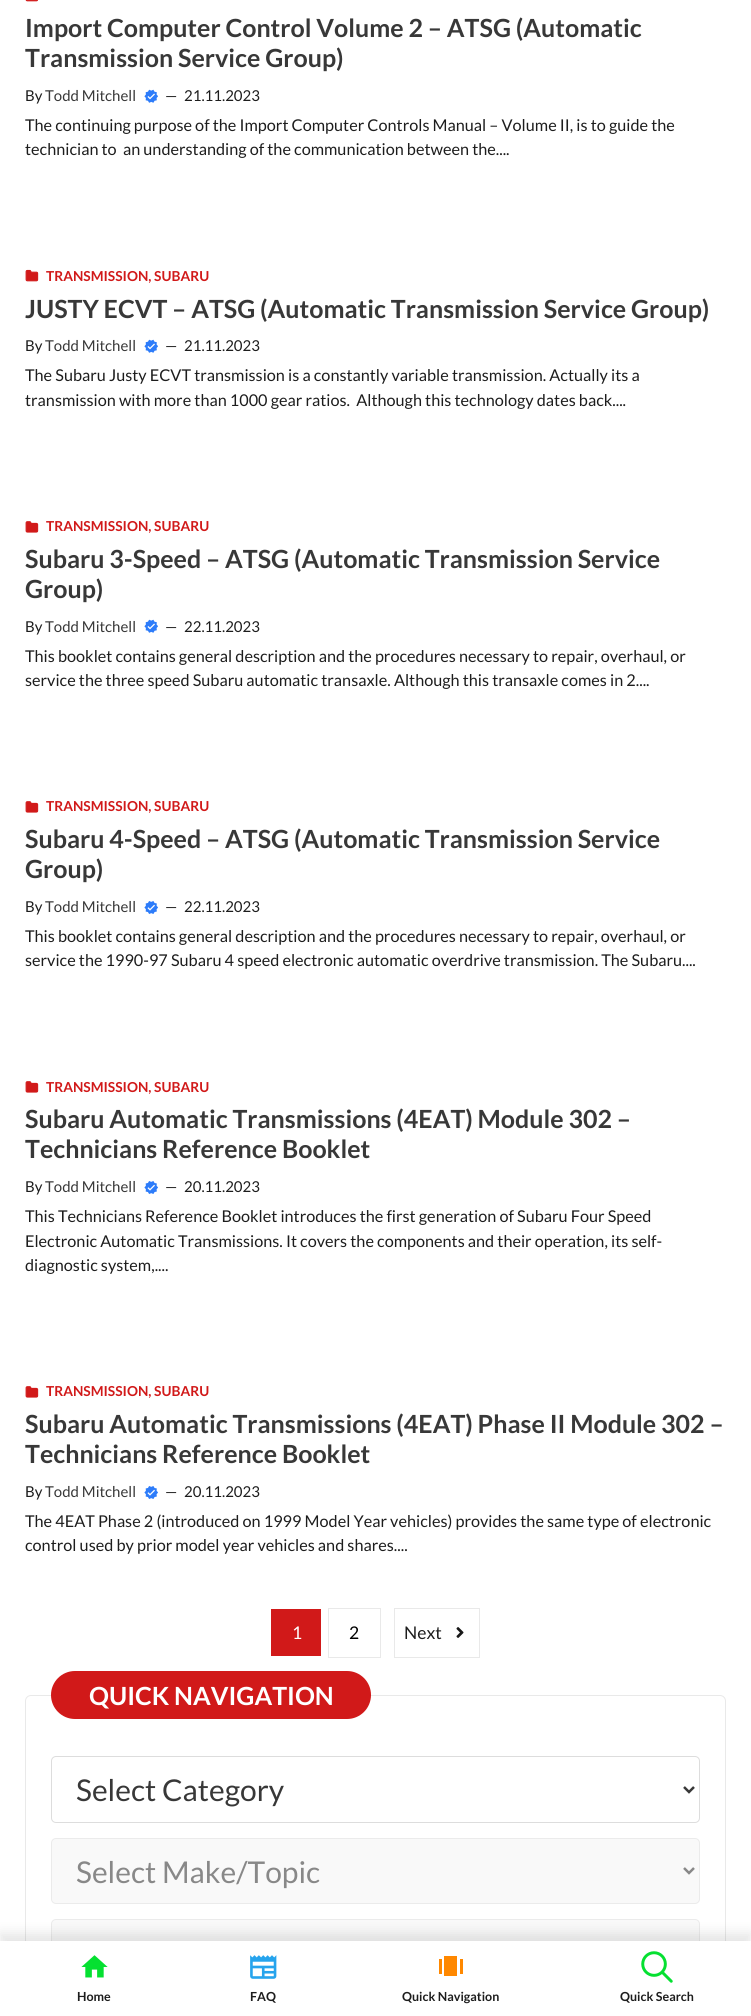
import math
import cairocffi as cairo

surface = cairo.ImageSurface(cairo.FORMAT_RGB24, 751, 2016)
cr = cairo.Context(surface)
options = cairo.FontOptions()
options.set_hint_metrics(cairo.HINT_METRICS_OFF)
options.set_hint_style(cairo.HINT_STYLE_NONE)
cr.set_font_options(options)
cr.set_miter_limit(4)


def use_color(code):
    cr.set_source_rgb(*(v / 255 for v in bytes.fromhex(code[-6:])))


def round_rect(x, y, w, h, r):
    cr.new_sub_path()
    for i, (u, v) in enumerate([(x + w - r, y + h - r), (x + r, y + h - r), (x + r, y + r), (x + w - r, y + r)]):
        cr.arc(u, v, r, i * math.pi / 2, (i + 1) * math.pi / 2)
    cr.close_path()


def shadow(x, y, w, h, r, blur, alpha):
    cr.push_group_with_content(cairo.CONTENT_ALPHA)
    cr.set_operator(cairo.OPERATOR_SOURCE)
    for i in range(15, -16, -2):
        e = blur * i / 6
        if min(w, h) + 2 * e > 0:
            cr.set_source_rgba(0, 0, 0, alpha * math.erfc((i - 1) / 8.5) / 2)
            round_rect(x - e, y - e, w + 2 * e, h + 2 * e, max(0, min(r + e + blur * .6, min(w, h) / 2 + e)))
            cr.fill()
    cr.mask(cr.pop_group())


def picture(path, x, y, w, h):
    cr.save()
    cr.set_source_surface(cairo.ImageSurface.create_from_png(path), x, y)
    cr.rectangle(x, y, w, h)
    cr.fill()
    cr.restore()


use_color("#ffffff")
cr.paint()
picture("img1.png", 25, 0, 13, 2)
cr.select_font_face("Lato", cairo.FONT_SLANT_NORMAL, cairo.FONT_WEIGHT_BOLD)
cr.set_font_size(25)
use_color("#383838")
cr.move_to(25, 37)
cr.show_text("Import Computer Control Volume 2 – ATSG (Automatic")
cr.move_to(25, 67)
cr.show_text("Transmission Service Group)")
cr.select_font_face("Lato")
cr.set_font_size(15)
use_color("#1d1d1d")
cr.move_to(25, 101)
cr.show_text("By")
use_color("#383838")
cr.move_to(45, 101)
cr.show_text("Todd Mitchell")
picture("img2.png", 144, 89, 14, 14)
use_color("#1d1d1d")
cr.move_to(165, 101)
cr.show_text("—")
cr.move_to(184, 101)
cr.show_text("21.11.2023")
cr.set_font_size(16.25)
cr.move_to(25, 131)
cr.show_text("The continuing purpose of the Import Computer Controls Manual – Volume II, is to guide the")
cr.move_to(25, 155)
cr.show_text("technician to  an understanding of the communication between the....")
picture("img3.png", 25, 269, 14, 13)
cr.select_font_face("Lato", cairo.FONT_SLANT_NORMAL, cairo.FONT_WEIGHT_BOLD)
cr.set_font_size(13.75)
use_color("#d11919")
cr.move_to(46, 281)
cr.show_text("TRANSMISSION, SUBARU")
cr.set_font_size(25)
use_color("#383838")
cr.move_to(25, 318)
cr.show_text("JUSTY ECVT – ATSG (Automatic Transmission Service Group)")
cr.select_font_face("Lato")
cr.set_font_size(15)
use_color("#1d1d1d")
cr.move_to(25, 351)
cr.show_text("By")
use_color("#383838")
cr.move_to(45, 351)
cr.show_text("Todd Mitchell")
picture("img2.png", 144, 339, 14, 14)
use_color("#1d1d1d")
cr.move_to(165, 351)
cr.show_text("—")
cr.move_to(184, 351)
cr.show_text("21.11.2023")
cr.set_font_size(16.25)
cr.move_to(25, 381)
cr.show_text("The Subaru Justy ECVT transmission is a constantly variable transmission. Actually its a")
cr.move_to(25, 406)
cr.show_text("transmission with more than 1000 gear ratios.  Although this technology dates back....")
picture("img4.png", 25, 521, 14, 12)
cr.select_font_face("Lato", cairo.FONT_SLANT_NORMAL, cairo.FONT_WEIGHT_BOLD)
cr.set_font_size(13.75)
use_color("#d11919")
cr.move_to(46, 531)
cr.show_text("TRANSMISSION, SUBARU")
cr.set_font_size(25)
use_color("#383838")
cr.move_to(25, 568)
cr.show_text("Subaru 3-Speed – ATSG (Automatic Transmission Service")
cr.move_to(25, 598)
cr.show_text("Group)")
cr.select_font_face("Lato")
cr.set_font_size(15)
use_color("#1d1d1d")
cr.move_to(25, 632)
cr.show_text("By")
use_color("#383838")
cr.move_to(45, 632)
cr.show_text("Todd Mitchell")
picture("img2.png", 144, 619, 14, 14)
use_color("#1d1d1d")
cr.move_to(165, 632)
cr.show_text("—")
cr.move_to(184, 632)
cr.show_text("22.11.2023")
cr.set_font_size(16.25)
cr.move_to(25, 662)
cr.show_text("This booklet contains general description and the procedures necessary to repair, overhaul, or")
cr.move_to(25, 686)
cr.show_text("service the three speed Subaru automatic transaxle. Although this transaxle comes in 2....")
picture("img4.png", 25, 801, 14, 12)
cr.select_font_face("Lato", cairo.FONT_SLANT_NORMAL, cairo.FONT_WEIGHT_BOLD)
cr.set_font_size(13.75)
use_color("#d11919")
cr.move_to(46, 811)
cr.show_text("TRANSMISSION, SUBARU")
cr.set_font_size(25)
use_color("#383838")
cr.move_to(25, 848)
cr.show_text("Subaru 4-Speed – ATSG (Automatic Transmission Service")
cr.move_to(25, 878)
cr.show_text("Group)")
cr.select_font_face("Lato")
cr.set_font_size(15)
use_color("#1d1d1d")
cr.move_to(25, 912)
cr.show_text("By")
use_color("#383838")
cr.move_to(45, 912)
cr.show_text("Todd Mitchell")
picture("img5.png", 144, 901, 14, 13)
use_color("#1d1d1d")
cr.move_to(165, 912)
cr.show_text("—")
cr.move_to(184, 912)
cr.show_text("22.11.2023")
cr.set_font_size(16.25)
cr.move_to(25, 942)
cr.show_text("This booklet contains general description and the procedures necessary to repair, overhaul, or")
cr.move_to(25, 966)
cr.show_text("service the 1990-97 Subaru 4 speed electronic automatic overdrive transmission. The Subaru....")
picture("img4.png", 25, 1081, 14, 12)
cr.select_font_face("Lato", cairo.FONT_SLANT_NORMAL, cairo.FONT_WEIGHT_BOLD)
cr.set_font_size(13.75)
use_color("#d11919")
cr.move_to(46, 1092)
cr.show_text("TRANSMISSION, SUBARU")
cr.set_font_size(25)
use_color("#383838")
cr.move_to(25, 1128)
cr.show_text("Subaru Automatic Transmissions (4EAT) Module 302 –")
cr.move_to(25, 1158)
cr.show_text("Technicians Reference Booklet")
cr.select_font_face("Lato")
cr.set_font_size(15)
use_color("#1d1d1d")
cr.move_to(25, 1192)
cr.show_text("By")
use_color("#383838")
cr.move_to(45, 1192)
cr.show_text("Todd Mitchell")
picture("img5.png", 144, 1181, 14, 13)
use_color("#1d1d1d")
cr.move_to(165, 1192)
cr.show_text("—")
cr.move_to(184, 1192)
cr.show_text("20.11.2023")
cr.set_font_size(16.25)
cr.move_to(25, 1222)
cr.show_text("This Technicians Reference Booklet introduces the first generation of Subaru Four Speed")
cr.move_to(25, 1247)
cr.show_text("Electronic Automatic Transmissions. It covers the components and their operation, its self-")
cr.move_to(25, 1271)
cr.show_text("diagnostic system,....")
picture("img4.png", 25, 1386, 14, 12)
cr.select_font_face("Lato", cairo.FONT_SLANT_NORMAL, cairo.FONT_WEIGHT_BOLD)
cr.set_font_size(13.75)
use_color("#d11919")
cr.move_to(46, 1396)
cr.show_text("TRANSMISSION, SUBARU")
cr.set_font_size(25)
use_color("#383838")
cr.move_to(25, 1433)
cr.show_text("Subaru Automatic Transmissions (4EAT) Phase II Module 302 –")
cr.move_to(25, 1463)
cr.show_text("Technicians Reference Booklet")
cr.select_font_face("Lato")
cr.set_font_size(15)
use_color("#1d1d1d")
cr.move_to(25, 1497)
cr.show_text("By")
use_color("#383838")
cr.move_to(45, 1497)
cr.show_text("Todd Mitchell")
picture("img5.png", 144, 1486, 14, 13)
use_color("#1d1d1d")
cr.move_to(165, 1497)
cr.show_text("—")
cr.move_to(184, 1497)
cr.show_text("20.11.2023")
cr.set_font_size(16.25)
cr.move_to(25, 1527)
cr.show_text("The 4EAT Phase 2 (introduced on 1999 Model Year vehicles) provides the same type of electronic")
cr.move_to(25, 1551)
cr.show_text("control used by prior model year vehicles and shares....")
use_color("#d11919")
cr.rectangle(271, 1609, 50, 47)
cr.fill()
cr.set_font_size(17.5)
use_color("#ffffff")
cr.move_to(292, 1639)
cr.show_text("1")
cr.rectangle(328.5, 1608.5, 52, 49)
use_color("#e9e9e9")
cr.set_line_width(1)
cr.stroke()
use_color("#000000")
cr.move_to(349, 1639)
cr.show_text("2")
cr.rectangle(394.5, 1608.5, 85, 49)
use_color("#e9e9e9")
cr.stroke()
use_color("#1d1d1d")
cr.move_to(404, 1639)
cr.show_text("Next")
picture("img6.png", 456, 1627, 8, 11)
round_rect(25.5, 1695.5, 700, 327, 5.5)
use_color("#e9e9e9")
cr.stroke()
use_color("#d11919")
round_rect(51, 1671, 320, 48, 24)
cr.fill()
cr.select_font_face("Lato", cairo.FONT_SLANT_NORMAL, cairo.FONT_WEIGHT_BOLD)
cr.set_font_size(25)
use_color("#ffffff")
cr.move_to(89, 1705)
cr.show_text("QUICK NAVIGATION")
round_rect(51.5, 1756.5, 648, 66, 4.5)
use_color("#dddddd")
cr.stroke()
cr.new_path()
cr.move_to(684, 1787)
cr.line_to(689, 1792)
cr.line_to(694, 1787)
use_color("#383838")
cr.set_line_width(2.5)
cr.stroke()
cr.select_font_face("Lato")
cr.set_font_size(30)
cr.move_to(76, 1801)
cr.show_text("Select Category")
use_color("#f9f9f9")
round_rect(51.5, 1838.5, 648, 65, 4.5)
cr.fill_preserve()
use_color("#ebebeb")
cr.set_line_width(1)
cr.stroke()
cr.new_path()
cr.move_to(684, 1868)
cr.line_to(689, 1873)
cr.line_to(694, 1868)
use_color("#888888")
cr.set_line_width(2.5)
cr.stroke()
cr.move_to(76, 1883)
cr.show_text("Select Make/Topic")
use_color("#f9f9f9")
round_rect(51.5, 1919.5, 648, 65, 4.5)
cr.fill_preserve()
use_color("#ebebeb")
cr.set_line_width(1)
cr.stroke()
use_color("#000000")
shadow(0, 1933, 751, 75, 0, 6, 0.1)
use_color("#ffffff")
cr.rectangle(0, 1941, 751, 75)
cr.fill()
picture("img7.png", 81, 1955, 27, 23)
cr.select_font_face("Lato", cairo.FONT_SLANT_NORMAL, cairo.FONT_WEIGHT_BOLD)
cr.set_font_size(12.5)
use_color("#1d1d1d")
cr.move_to(77, 2001)
cr.show_text("Home")
picture("img8.png", 250, 1955, 27, 24)
cr.move_to(250, 2001)
cr.show_text("FAQ")
use_color("#ff8800")
cr.rectangle(439, 1959, 3, 15)
cr.fill()
cr.rectangle(444, 1956, 13, 20)
cr.fill()
cr.rectangle(460, 1959, 3, 15)
cr.fill()
use_color("#1d1d1d")
cr.move_to(402, 2001)
cr.show_text("Quick Navigation")
picture("img9.png", 641, 1951, 32, 32)
cr.move_to(620, 2001)
cr.show_text("Quick Search")
surface.write_to_png("result.png")
